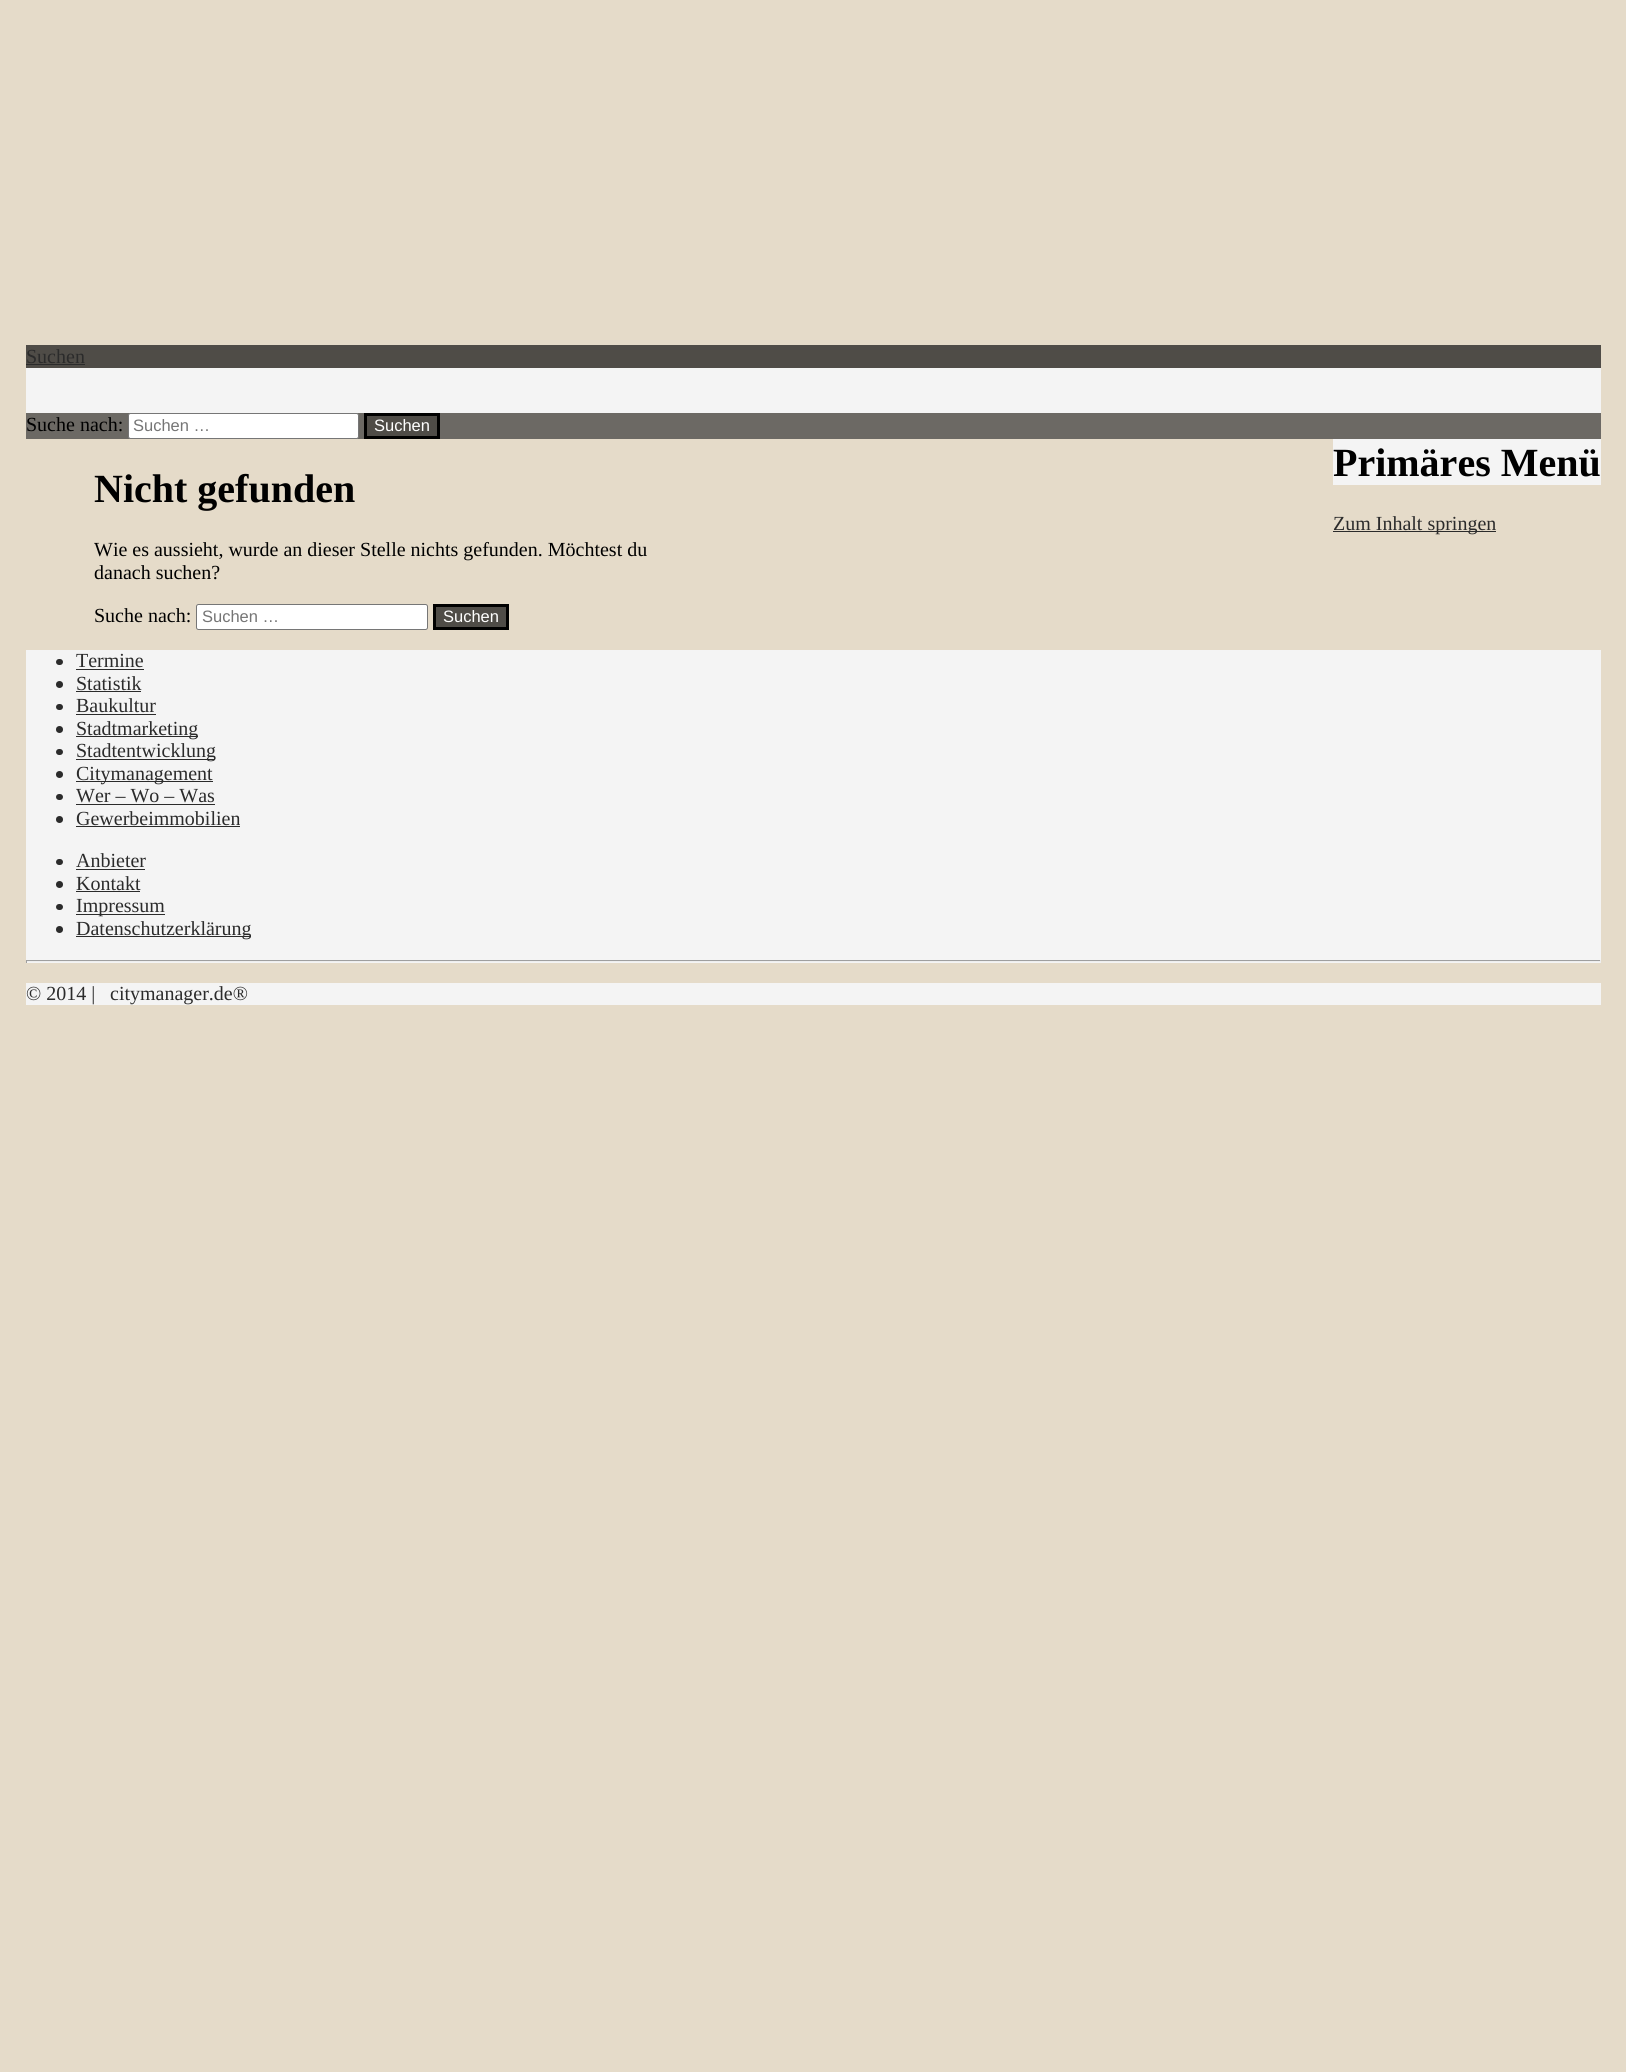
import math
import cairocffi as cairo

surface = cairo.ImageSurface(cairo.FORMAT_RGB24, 1626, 2072)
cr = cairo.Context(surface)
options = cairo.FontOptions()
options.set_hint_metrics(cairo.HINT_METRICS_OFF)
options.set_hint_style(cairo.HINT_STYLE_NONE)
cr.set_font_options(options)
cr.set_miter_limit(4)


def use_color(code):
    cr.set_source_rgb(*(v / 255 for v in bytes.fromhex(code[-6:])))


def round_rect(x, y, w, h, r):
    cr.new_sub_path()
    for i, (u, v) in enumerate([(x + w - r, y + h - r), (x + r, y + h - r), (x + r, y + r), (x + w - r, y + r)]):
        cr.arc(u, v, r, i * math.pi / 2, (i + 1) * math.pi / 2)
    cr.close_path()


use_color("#e5dbc9")
cr.paint()
use_color("#f4f4f4")
cr.rectangle(26, 368, 1575, 45)
cr.fill()
use_color("#4f4c47")
cr.rectangle(26, 345, 1575, 23)
cr.fill()
cr.select_font_face("Liberation Serif")
cr.set_font_size(20)
use_color("#2b2b2b")
cr.move_to(26, 363)
cr.show_text("Suchen")
cr.rectangle(26, 364, 59, 1)
cr.fill()
use_color("#f4f4f4")
cr.rectangle(1333, 439, 268, 46)
cr.fill()
cr.select_font_face("Liberation Serif", cairo.FONT_SLANT_NORMAL, cairo.FONT_WEIGHT_BOLD)
cr.set_font_size(40)
use_color("#000000")
cr.move_to(1333, 476)
cr.show_text("Primäres Menü")
use_color("#2b2b2b")
cr.rectangle(1333, 531, 163, 1)
cr.fill()
cr.select_font_face("Liberation Serif")
cr.set_font_size(20)
cr.move_to(1333, 530)
cr.show_text("Zum Inhalt springen")
use_color("#6c6964")
cr.rectangle(26, 413, 1575, 26)
cr.fill()
use_color("#000000")
cr.move_to(26, 431)
cr.show_text("Suche nach:")
use_color("#ffffff")
round_rect(128.5, 413.5, 230, 25, 2)
cr.fill_preserve()
use_color("#767676")
cr.set_line_width(1)
cr.stroke()
cr.select_font_face("Liberation Sans")
cr.set_font_size(16.5)
use_color("#757575")
cr.move_to(133, 431)
cr.show_text("Suchen …")
use_color("#4f4c47")
cr.rectangle(365.5, 414.5, 73, 23)
cr.fill_preserve()
use_color("#000000")
cr.set_line_width(3)
cr.stroke()
use_color("#ffffff")
cr.move_to(374, 431)
cr.show_text("Suchen")
cr.select_font_face("Liberation Serif", cairo.FONT_SLANT_NORMAL, cairo.FONT_WEIGHT_BOLD)
cr.set_font_size(40)
use_color("#000000")
cr.move_to(94, 502)
cr.show_text("Nicht gefunden")
cr.select_font_face("Liberation Serif")
cr.set_font_size(20)
cr.move_to(94, 556)
cr.show_text("Wie es aussieht, wurde an dieser Stelle nichts gefunden. Möchtest du")
cr.move_to(94, 579)
cr.show_text("danach suchen?")
cr.move_to(94, 622)
cr.show_text("Suche nach:")
use_color("#ffffff")
round_rect(196.5, 604.5, 231, 25, 2)
cr.fill_preserve()
use_color("#767676")
cr.set_line_width(1)
cr.stroke()
cr.select_font_face("Liberation Sans")
cr.set_font_size(16.5)
use_color("#757575")
cr.move_to(202, 622)
cr.show_text("Suchen …")
use_color("#4f4c47")
cr.rectangle(434.5, 605.5, 73, 23)
cr.fill_preserve()
use_color("#000000")
cr.set_line_width(3)
cr.stroke()
use_color("#ffffff")
cr.move_to(443, 622)
cr.show_text("Suchen")
use_color("#f4f4f4")
cr.rectangle(26, 650, 1575, 313)
cr.fill()
use_color("#2b2b2b")
round_rect(56, 659, 7, 6, 3)
cr.fill()
cr.select_font_face("Liberation Serif")
cr.set_font_size(20)
cr.move_to(76, 667)
cr.show_text("Termine")
cr.rectangle(76, 669, 68, 1)
cr.fill()
cr.arc(59.5, 684.5, 3.5, 0, 2 * math.pi)
cr.fill()
cr.move_to(76, 690)
cr.show_text("Statistik")
cr.rectangle(76, 691, 65, 1)
cr.fill()
round_rect(56, 704, 7, 6, 3)
cr.fill()
cr.move_to(76, 712)
cr.show_text("Baukultur")
cr.rectangle(76, 714, 80, 1)
cr.fill()
cr.arc(59.5, 729.5, 3.5, 0, 2 * math.pi)
cr.fill()
cr.rectangle(76, 736, 122, 1)
cr.fill()
cr.move_to(76, 735)
cr.show_text("Stadtmarketing")
round_rect(56, 749, 7, 6, 3)
cr.fill()
cr.rectangle(76, 759, 139, 1)
cr.fill()
cr.move_to(76, 757)
cr.show_text("Stadtentwicklung")
cr.new_path()
cr.arc(59.5, 774.5, 3.5, 0, 2 * math.pi)
cr.fill()
cr.rectangle(76, 781, 137, 1)
cr.fill()
cr.move_to(76, 780)
cr.show_text("Citymanagement")
round_rect(56, 794, 7, 6, 3)
cr.fill()
cr.move_to(76, 802)
cr.show_text("Wer – Wo – Was")
cr.rectangle(76, 804, 139, 1)
cr.fill()
cr.arc(59.5, 819.5, 3.5, 0, 2 * math.pi)
cr.fill()
cr.move_to(76, 825)
cr.show_text("Gewerbeimmobilien")
cr.rectangle(76, 826, 164, 1)
cr.fill()
round_rect(56, 859, 7, 6, 3)
cr.fill()
cr.move_to(76, 867)
cr.show_text("Anbieter")
cr.rectangle(76, 869, 69, 1)
cr.fill()
cr.arc(59.5, 884.5, 3.5, 0, 2 * math.pi)
cr.fill()
cr.move_to(76, 890)
cr.show_text("Kontakt")
cr.rectangle(76, 891, 64, 1)
cr.fill()
round_rect(56, 904, 7, 6, 3)
cr.fill()
cr.rectangle(76, 914, 89, 1)
cr.fill()
cr.move_to(76, 912)
cr.show_text("Impressum")
cr.new_path()
cr.arc(59.5, 929.5, 3.5, 0, 2 * math.pi)
cr.fill()
cr.rectangle(76, 936, 175, 1)
cr.fill()
cr.move_to(76, 935)
cr.show_text("Datenschutzerklärung")
use_color("#9f9f9f")
cr.rectangle(26, 960, 1575, 1)
cr.fill()
use_color("#eeeeee")
cr.rectangle(1600, 960, 1, 3)
cr.fill()
cr.rectangle(26, 961, 1575, 1)
cr.fill()
use_color("#9f9f9f")
cr.rectangle(26, 960, 1, 3)
cr.fill()
use_color("#f4f4f4")
cr.rectangle(26, 983, 1575, 22)
cr.fill()
use_color("#2b2b2b")
cr.move_to(26, 1000)
cr.show_text("© 2014 |")
cr.move_to(110, 1000)
cr.show_text("citymanager.de®")
surface.write_to_png("result.png")
